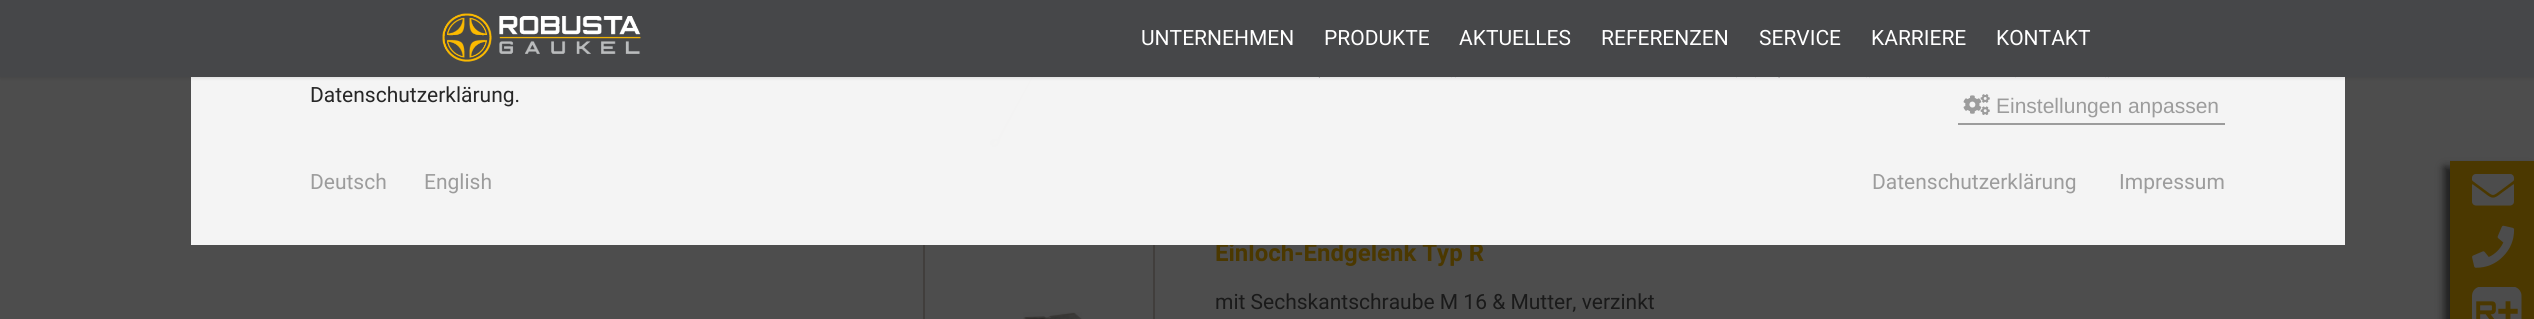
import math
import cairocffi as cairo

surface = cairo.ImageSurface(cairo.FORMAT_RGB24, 2534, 319)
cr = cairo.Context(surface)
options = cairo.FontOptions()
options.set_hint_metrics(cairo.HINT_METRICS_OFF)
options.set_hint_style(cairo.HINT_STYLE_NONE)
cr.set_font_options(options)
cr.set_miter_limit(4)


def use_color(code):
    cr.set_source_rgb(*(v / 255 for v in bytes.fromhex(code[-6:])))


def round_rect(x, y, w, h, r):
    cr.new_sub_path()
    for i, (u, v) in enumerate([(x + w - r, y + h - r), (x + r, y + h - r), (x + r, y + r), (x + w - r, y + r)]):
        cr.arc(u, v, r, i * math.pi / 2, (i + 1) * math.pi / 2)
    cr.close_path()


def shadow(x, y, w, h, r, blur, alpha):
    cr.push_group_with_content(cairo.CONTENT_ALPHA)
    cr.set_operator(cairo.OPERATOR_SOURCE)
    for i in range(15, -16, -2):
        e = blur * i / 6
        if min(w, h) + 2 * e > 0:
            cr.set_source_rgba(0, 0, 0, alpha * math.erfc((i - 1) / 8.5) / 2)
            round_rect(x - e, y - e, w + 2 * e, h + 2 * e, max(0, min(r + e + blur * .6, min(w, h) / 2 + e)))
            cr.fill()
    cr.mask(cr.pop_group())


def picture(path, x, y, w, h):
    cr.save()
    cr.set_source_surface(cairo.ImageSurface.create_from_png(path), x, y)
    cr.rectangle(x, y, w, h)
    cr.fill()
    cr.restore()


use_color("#4d4d4d")
cr.paint()
cr.rectangle(924, -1, 230, 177)
use_color("#413e3c")
cr.stroke()
picture("img2.png", 978, 77, 100, 87)
cr.rectangle(923, 207, 1170, 2)
cr.fill()
round_rect(1216, 85, 876, 54, 2)
use_color("#424242")
cr.stroke()
picture("img3.png", 2059, 108, 19, 11)
cr.rectangle(924, 240, 230, 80)
use_color("#413e3c")
cr.stroke()
cr.select_font_face("Roboto", cairo.FONT_SLANT_NORMAL, cairo.FONT_WEIGHT_BOLD)
cr.set_font_size(24)
use_color("#4b3800")
cr.move_to(1215, 261)
cr.show_text("Einloch-Endgelenk Typ R")
cr.set_source_rgba(0.976, 0.976, 0.976, 0.97)
cr.rectangle(191, 77, 2154, 168)
cr.fill()
use_color("#000000")
shadow(0, 2, 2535, 76, 0, 1.5, 0.1)
use_color("#464749")
cr.rectangle(0, 0, 2534, 77)
cr.fill()
picture("img1.png", 442, 13, 199, 49)
cr.select_font_face("Roboto")
cr.set_font_size(21)
use_color("#ffffff")
cr.move_to(1141, 45)
cr.show_text("UNTERNEHMEN")
use_color("#464749")
cr.new_path()
cr.move_to(1452, 75)
cr.line_to(1450, 77)
cr.line_to(1451, 77)
cr.line_to(1451, 77.5)
cr.close_path()
cr.fill()
use_color("#ffffff")
cr.move_to(1324, 45)
cr.show_text("PRODUKTE")
use_color("#464749")
cr.new_path()
cr.move_to(1737, 75)
cr.curve_to(1737, 76, 1736.5, 77, 1736, 77.5)
cr.line_to(1736, 77)
cr.line_to(1735, 77)
cr.close_path()
cr.fill()
cr.new_path()
cr.move_to(1319.5, 78)
cr.curve_to(1318.5, 77, 1318.5, 76.5, 1318.5, 75)
cr.line_to(1321, 77)
cr.line_to(1319.5, 77)
cr.close_path()
cr.fill()
use_color("#ffffff")
cr.move_to(1459, 45)
cr.show_text("AKTUELLES")
use_color("#464749")
cr.new_path()
cr.move_to(1780, 75.5)
cr.line_to(1779.5, 77.5)
cr.line_to(1778, 77)
cr.close_path()
cr.fill()
cr.new_path()
cr.move_to(1455, 75)
cr.line_to(1457, 77)
cr.line_to(1456, 77)
cr.line_to(1456, 77.5)
cr.curve_to(1455.5, 77, 1455, 76, 1455, 75)
cr.close_path()
cr.fill()
use_color("#ffffff")
cr.move_to(1601, 45)
cr.show_text("REFERENZEN")
cr.move_to(1759, 45)
cr.show_text("SERVICE")
use_color("#464749")
cr.new_path()
cr.move_to(2016, 75)
cr.line_to(2014, 77)
cr.line_to(2015, 77)
cr.line_to(2015, 77.5)
cr.close_path()
cr.fill()
cr.new_path()
cr.move_to(1755, 75)
cr.line_to(1757, 77)
cr.line_to(1756, 77)
cr.line_to(1756, 77.5)
cr.curve_to(1755.5, 77, 1755, 76, 1755, 75)
cr.close_path()
cr.fill()
use_color("#ffffff")
cr.move_to(1871, 45)
cr.show_text("KARRIERE")
use_color("#464749")
cr.new_path()
cr.move_to(2106, 75)
cr.line_to(2104, 77)
cr.line_to(2105, 77)
cr.line_to(2105, 77.5)
cr.close_path()
cr.fill()
cr.new_path()
cr.move_to(1866, 75)
cr.line_to(1868, 77)
cr.line_to(1867, 77)
cr.line_to(1867, 77.5)
cr.close_path()
cr.fill()
use_color("#ffffff")
cr.move_to(1996, 45)
cr.show_text("KONTAKT")
use_color("#464749")
cr.new_path()
cr.move_to(2109, 75)
cr.curve_to(2109, 76, 2108.5, 77, 2108, 77.5)
cr.line_to(2108, 77)
cr.line_to(2107, 77)
cr.close_path()
cr.fill()
cr.new_path()
cr.move_to(1869, 75)
cr.line_to(1871, 77)
cr.line_to(1870, 77)
cr.line_to(1870, 77.5)
cr.curve_to(1869.5, 77, 1869, 76, 1869, 75)
cr.close_path()
cr.fill()
picture("img4.png", 1023, 312, 59, 7)
use_color("#1a1a1a")
cr.move_to(1215, 309)
cr.show_text("mit Sechskantschraube M 16 & Mutter, verzinkt")
use_color("#1f1f1f")
shadow(2444, 167, 85, 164, 0, 4, 1)
use_color("#4b3800")
cr.rectangle(2450, 161, 84, 158)
cr.fill()
picture("img5.png", 2472, 174, 42, 32)
picture("img6.png", 2472, 225, 43, 43)
picture("img7.png", 2472, 287, 50, 32)
use_color("#272727")
cr.move_to(310, 102)
cr.show_text("Datenschutzerklärung.")
use_color("#9c9c9c")
cr.rectangle(1958, 123, 267, 2)
cr.fill()
picture("img8.png", 1963, 94, 27, 21)
cr.select_font_face("Liberation Sans")
cr.move_to(1996, 113)
cr.show_text("Einstellungen anpassen")
cr.select_font_face("Roboto")
cr.move_to(310, 189)
cr.show_text("Deutsch")
cr.move_to(424, 189)
cr.show_text("English")
cr.move_to(1872, 189)
cr.show_text("Datenschutzerklärung")
cr.move_to(2119, 189)
cr.show_text("Impressum")
surface.write_to_png("result.png")
